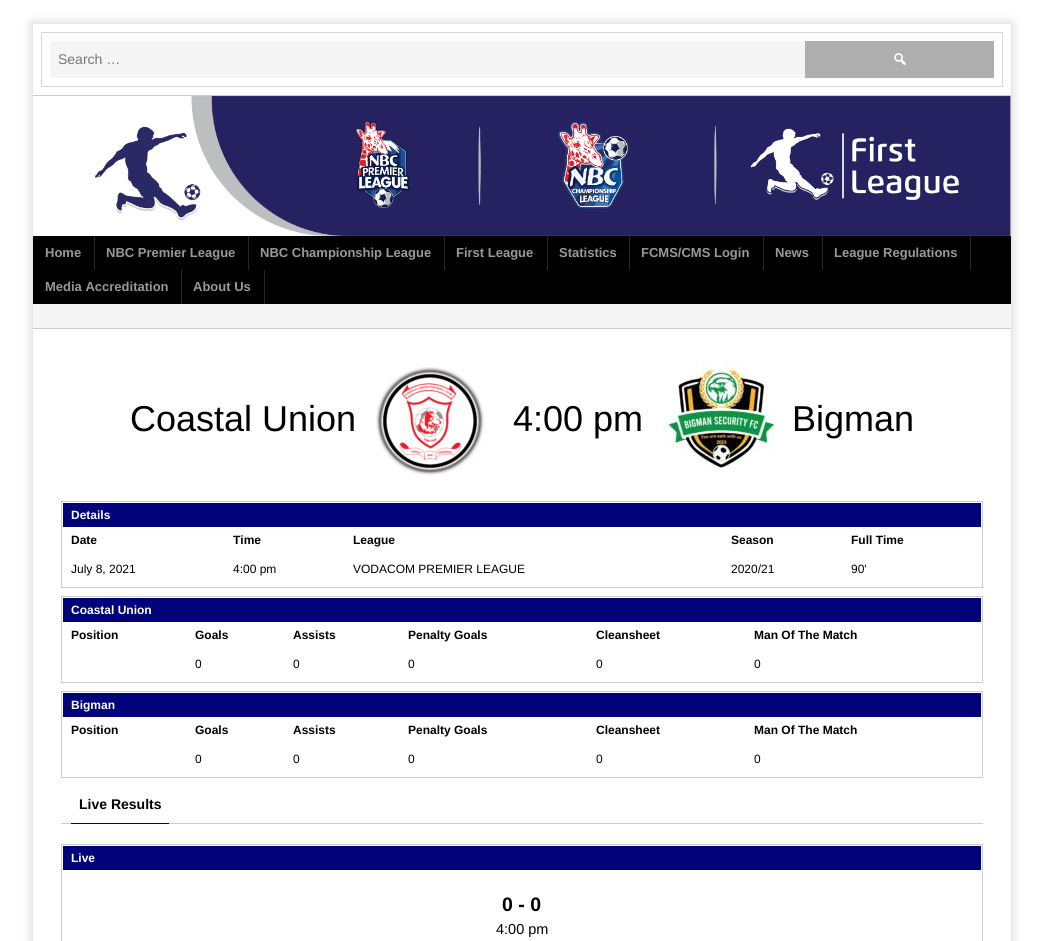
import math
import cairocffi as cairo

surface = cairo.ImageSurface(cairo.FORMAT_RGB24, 1044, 941)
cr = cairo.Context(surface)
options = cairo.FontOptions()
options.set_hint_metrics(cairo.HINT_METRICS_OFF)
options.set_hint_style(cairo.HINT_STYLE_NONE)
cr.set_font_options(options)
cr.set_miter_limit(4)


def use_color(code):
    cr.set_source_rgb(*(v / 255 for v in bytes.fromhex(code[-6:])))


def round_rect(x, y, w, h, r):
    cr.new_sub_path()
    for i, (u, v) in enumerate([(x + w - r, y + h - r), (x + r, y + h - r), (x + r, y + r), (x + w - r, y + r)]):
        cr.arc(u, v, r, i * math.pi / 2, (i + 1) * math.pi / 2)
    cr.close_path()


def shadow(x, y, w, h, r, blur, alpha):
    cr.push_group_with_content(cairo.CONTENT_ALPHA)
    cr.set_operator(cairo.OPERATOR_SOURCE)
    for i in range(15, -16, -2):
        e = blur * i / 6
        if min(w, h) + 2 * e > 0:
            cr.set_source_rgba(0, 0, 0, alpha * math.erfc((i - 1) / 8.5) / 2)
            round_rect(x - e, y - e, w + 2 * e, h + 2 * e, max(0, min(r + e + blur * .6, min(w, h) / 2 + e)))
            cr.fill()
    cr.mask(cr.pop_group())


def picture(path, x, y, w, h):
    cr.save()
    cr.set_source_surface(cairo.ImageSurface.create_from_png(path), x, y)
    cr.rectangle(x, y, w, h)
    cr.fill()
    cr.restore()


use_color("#ffffff")
cr.paint()
cr.save()
cr.set_fill_rule(cairo.FILL_RULE_EVEN_ODD)
cr.new_path()
cr.move_to(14, 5)
cr.line_to(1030, 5)
cr.line_to(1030, 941)
cr.line_to(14, 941)
cr.close_path()
cr.move_to(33, 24)
cr.line_to(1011, 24)
cr.line_to(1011, 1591)
cr.line_to(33, 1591)
cr.close_path()
cr.clip()
use_color("#000000")
shadow(33, 24, 978, 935, 0, 6, 0.2)
cr.restore()
use_color("#cccccc")
cr.rectangle(33, 95, 978, 1)
cr.fill()
cr.rectangle(41.5, 32.5, 961, 54)
use_color("#d7d7d7")
cr.set_line_width(1)
cr.stroke()
use_color("#f5f5f5")
cr.rectangle(50, 41, 755, 37)
cr.fill()
cr.select_font_face("Liberation Sans")
cr.set_font_size(14)
use_color("#757575")
cr.move_to(58, 64)
cr.show_text("Search …")
use_color("#aeaeae")
cr.rectangle(805, 41, 189, 37)
cr.fill()
picture("img1.png", 894, 53, 12, 12)
picture("img2.png", 95, 96, 916, 140)
use_color("#000000")
cr.rectangle(33, 236, 978, 68)
cr.fill()
use_color("#262626")
cr.rectangle(94, 236, 1, 34)
cr.fill()
cr.select_font_face("Liberation Sans", cairo.FONT_SLANT_NORMAL, cairo.FONT_WEIGHT_BOLD)
cr.set_font_size(13)
use_color("#999999")
cr.move_to(45, 257)
cr.show_text("Home")
use_color("#262626")
cr.rectangle(248, 236, 1, 34)
cr.fill()
use_color("#999999")
cr.move_to(106, 257)
cr.show_text("NBC Premier League")
use_color("#262626")
cr.rectangle(444, 236, 1, 34)
cr.fill()
use_color("#999999")
cr.move_to(260, 257)
cr.show_text("NBC Championship League")
use_color("#262626")
cr.rectangle(547, 236, 1, 34)
cr.fill()
use_color("#999999")
cr.move_to(456, 257)
cr.show_text("First League")
use_color("#262626")
cr.rectangle(629, 236, 1, 34)
cr.fill()
use_color("#999999")
cr.move_to(559, 257)
cr.show_text("Statistics")
use_color("#262626")
cr.rectangle(763, 236, 1, 34)
cr.fill()
use_color("#999999")
cr.move_to(641, 257)
cr.show_text("FCMS/CMS Login")
use_color("#262626")
cr.rectangle(822, 236, 1, 34)
cr.fill()
use_color("#999999")
cr.move_to(775, 257)
cr.show_text("News")
use_color("#262626")
cr.rectangle(970, 236, 1, 34)
cr.fill()
use_color("#999999")
cr.move_to(834, 257)
cr.show_text("League Regulations")
use_color("#262626")
cr.rectangle(181, 270, 1, 34)
cr.fill()
use_color("#999999")
cr.move_to(45, 291)
cr.show_text("Media Accreditation")
use_color("#262626")
cr.rectangle(264, 270, 1, 34)
cr.fill()
use_color("#999999")
cr.move_to(193, 291)
cr.show_text("About Us")
use_color("#f5f5f5")
cr.rectangle(33, 304, 978, 24)
cr.fill()
use_color("#cccccc")
cr.rectangle(33, 328, 978, 1)
cr.fill()
cr.select_font_face("Liberation Sans")
cr.set_font_size(36)
use_color("#000000")
cr.move_to(130, 431)
cr.show_text("Coastal Union")
picture("img3.png", 376, 367, 108, 108)
cr.move_to(513, 431)
cr.show_text("4:00 pm")
picture("img4.png", 663, 357, 112, 112)
cr.move_to(792, 431)
cr.show_text("Bigman")
cr.rectangle(61.5, 501.5, 921, 86)
use_color("#cccccc")
cr.stroke()
use_color("#00027a")
cr.rectangle(63, 503, 918, 24)
cr.fill()
cr.select_font_face("Liberation Sans", cairo.FONT_SLANT_NORMAL, cairo.FONT_WEIGHT_BOLD)
cr.set_font_size(12)
use_color("#ffffff")
cr.move_to(71, 519)
cr.show_text("Details")
use_color("#000000")
cr.move_to(71, 544)
cr.show_text("Date")
cr.move_to(233, 544)
cr.show_text("Time")
cr.move_to(353, 544)
cr.show_text("League")
cr.move_to(731, 544)
cr.show_text("Season")
cr.move_to(851, 544)
cr.show_text("Full Time")
cr.select_font_face("Liberation Sans")
cr.move_to(71, 573)
cr.show_text("July 8, 2021")
cr.move_to(233, 573)
cr.show_text("4:00 pm")
cr.move_to(353, 573)
cr.show_text("VODACOM PREMIER LEAGUE")
cr.move_to(731, 573)
cr.show_text("2020/21")
cr.move_to(851, 573)
cr.show_text("90'")
cr.rectangle(61.5, 596.5, 921, 86)
use_color("#cccccc")
cr.stroke()
use_color("#00027a")
cr.rectangle(63, 598, 918, 24)
cr.fill()
cr.select_font_face("Liberation Sans", cairo.FONT_SLANT_NORMAL, cairo.FONT_WEIGHT_BOLD)
use_color("#ffffff")
cr.move_to(71, 614)
cr.show_text("Coastal Union")
use_color("#000000")
cr.move_to(71, 639)
cr.show_text("Position")
cr.move_to(195, 639)
cr.show_text("Goals")
cr.move_to(293, 639)
cr.show_text("Assists")
cr.move_to(408, 639)
cr.show_text("Penalty Goals")
cr.move_to(596, 639)
cr.show_text("Cleansheet")
cr.move_to(754, 639)
cr.show_text("Man Of The Match")
cr.select_font_face("Liberation Sans")
cr.move_to(195, 668)
cr.show_text("0")
cr.move_to(293, 668)
cr.show_text("0")
cr.move_to(408, 668)
cr.show_text("0")
cr.move_to(596, 668)
cr.show_text("0")
cr.move_to(754, 668)
cr.show_text("0")
cr.rectangle(61.5, 691.5, 921, 86)
use_color("#cccccc")
cr.stroke()
use_color("#00027a")
cr.rectangle(63, 693, 918, 24)
cr.fill()
cr.select_font_face("Liberation Sans", cairo.FONT_SLANT_NORMAL, cairo.FONT_WEIGHT_BOLD)
use_color("#ffffff")
cr.move_to(71, 709)
cr.show_text("Bigman")
use_color("#000000")
cr.move_to(71, 734)
cr.show_text("Position")
cr.move_to(195, 734)
cr.show_text("Goals")
cr.move_to(293, 734)
cr.show_text("Assists")
cr.move_to(408, 734)
cr.show_text("Penalty Goals")
cr.move_to(596, 734)
cr.show_text("Cleansheet")
cr.move_to(754, 734)
cr.show_text("Man Of The Match")
cr.select_font_face("Liberation Sans")
cr.move_to(195, 763)
cr.show_text("0")
cr.move_to(293, 763)
cr.show_text("0")
cr.move_to(408, 763)
cr.show_text("0")
cr.move_to(596, 763)
cr.show_text("0")
cr.move_to(754, 763)
cr.show_text("0")
use_color("#cccccc")
cr.rectangle(61, 823, 922, 1)
cr.fill()
use_color("#00027a")
cr.rectangle(71, 823, 98, 1)
cr.fill()
cr.select_font_face("Liberation Sans", cairo.FONT_SLANT_NORMAL, cairo.FONT_WEIGHT_BOLD)
cr.set_font_size(14)
use_color("#000000")
cr.move_to(79, 809)
cr.show_text("Live Results")
cr.rectangle(61.5, 844.5, 921, 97)
use_color("#cccccc")
cr.stroke()
use_color("#00027a")
cr.rectangle(63, 846, 918, 24)
cr.fill()
cr.set_font_size(12)
use_color("#ffffff")
cr.move_to(71, 862)
cr.show_text("Live")
cr.set_font_size(19.5)
use_color("#000000")
cr.move_to(502, 911)
cr.show_text("0 - 0")
cr.select_font_face("Liberation Sans")
cr.set_font_size(14.5)
cr.move_to(496, 934)
cr.show_text("4:00 pm")
surface.write_to_png("result.png")
